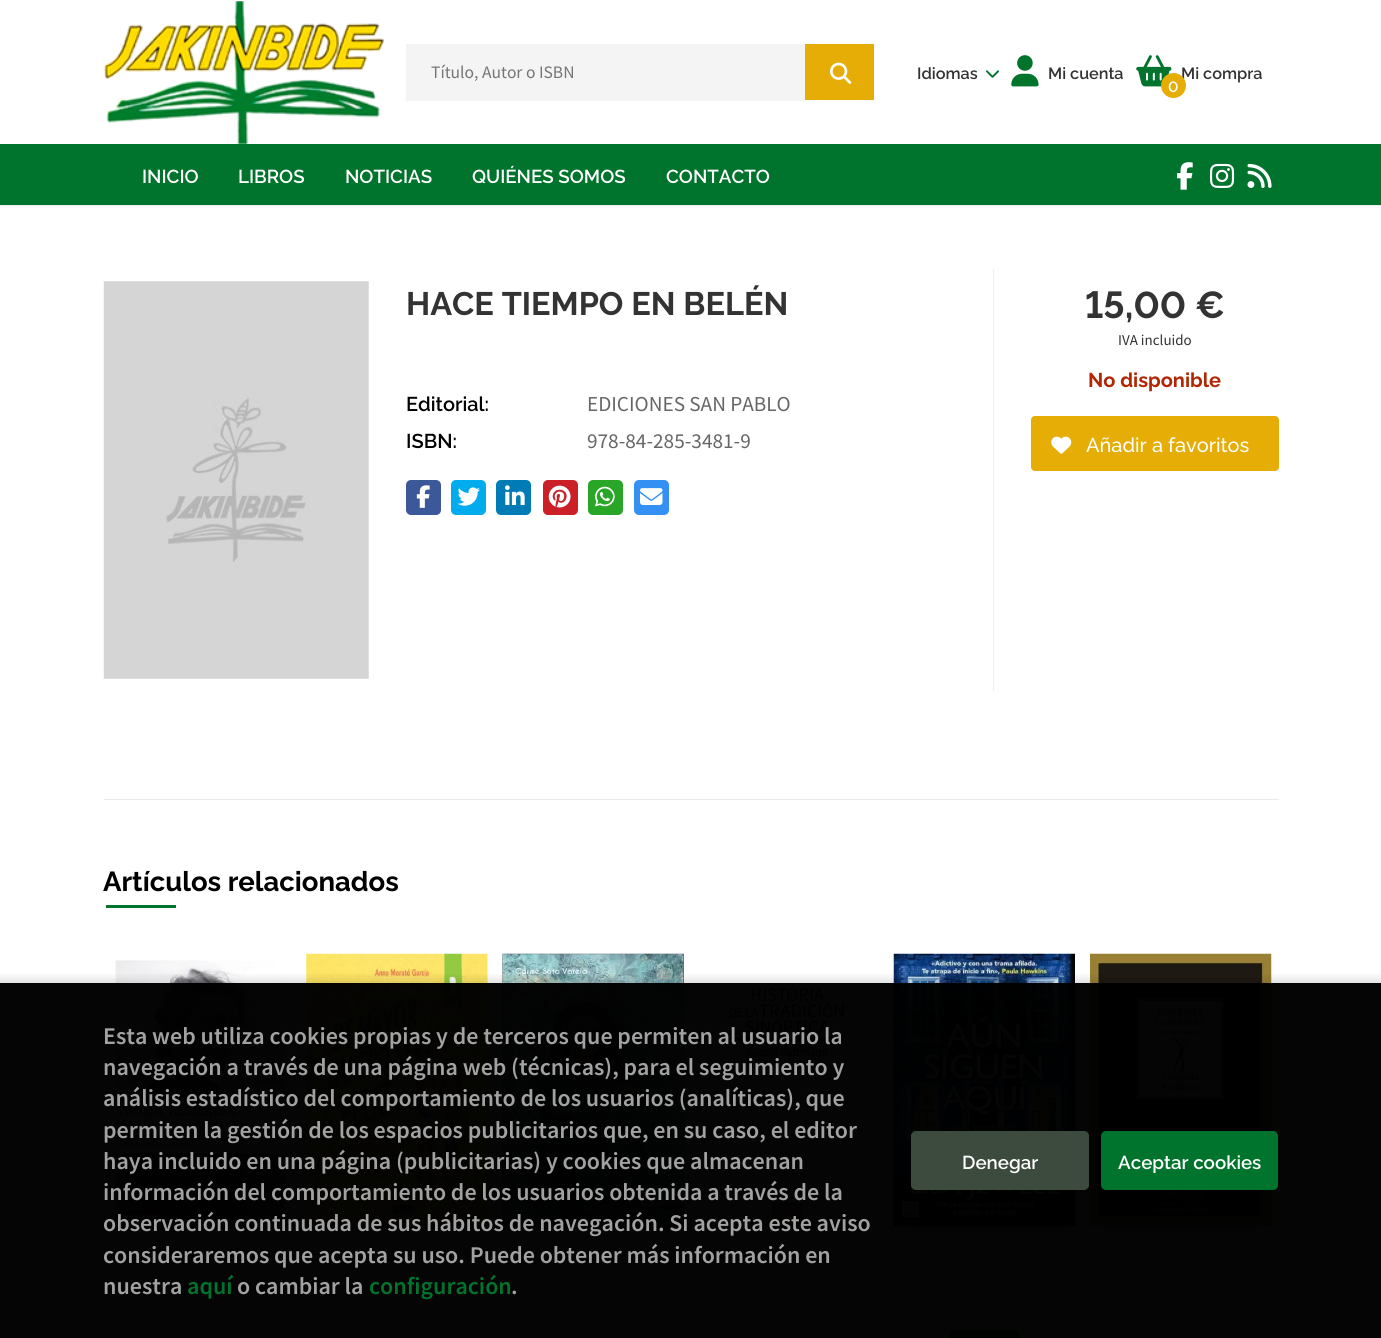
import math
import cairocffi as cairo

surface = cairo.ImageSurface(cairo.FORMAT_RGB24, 1381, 1338)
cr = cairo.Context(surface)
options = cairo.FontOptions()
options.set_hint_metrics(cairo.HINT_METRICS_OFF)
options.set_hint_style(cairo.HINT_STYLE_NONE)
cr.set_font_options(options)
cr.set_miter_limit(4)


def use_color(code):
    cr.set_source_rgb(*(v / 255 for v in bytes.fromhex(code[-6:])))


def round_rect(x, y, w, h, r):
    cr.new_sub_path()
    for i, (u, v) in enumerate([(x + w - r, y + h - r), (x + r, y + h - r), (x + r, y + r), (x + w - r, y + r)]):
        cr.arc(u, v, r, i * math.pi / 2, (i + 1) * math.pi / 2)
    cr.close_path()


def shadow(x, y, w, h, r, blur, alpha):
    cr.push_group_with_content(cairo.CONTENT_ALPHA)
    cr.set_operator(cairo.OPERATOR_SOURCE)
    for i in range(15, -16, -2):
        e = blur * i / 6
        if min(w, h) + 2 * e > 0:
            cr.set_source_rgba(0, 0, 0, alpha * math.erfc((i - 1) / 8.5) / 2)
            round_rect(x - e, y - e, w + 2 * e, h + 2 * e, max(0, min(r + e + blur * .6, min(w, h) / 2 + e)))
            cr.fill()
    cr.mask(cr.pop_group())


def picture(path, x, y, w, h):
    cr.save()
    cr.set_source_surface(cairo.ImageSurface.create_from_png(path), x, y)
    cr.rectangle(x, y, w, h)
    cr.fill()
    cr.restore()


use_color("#ffffff")
cr.paint()
picture("img1.png", 103, 1, 282, 143)
use_color("#f4f4f4")
cr.rectangle(406, 44, 399, 57)
cr.fill()
cr.select_font_face("Source Sans Pro")
cr.set_font_size(17.5)
use_color("#757575")
cr.move_to(431, 78)
cr.show_text("Título, Autor o ISBN")
use_color("#e5ad06")
cr.rectangle(805, 44, 69, 56)
cr.fill()
picture("img2.png", 830, 62, 22, 22)
cr.select_font_face("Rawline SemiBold")
cr.set_font_size(16.25)
use_color("#333333")
cr.move_to(917, 79)
cr.show_text("Idiomas")
picture("img3.png", 986, 70, 13, 8)
picture("img4.png", 1011, 55, 28, 32)
cr.move_to(1048, 79)
cr.show_text("Mi cuenta")
picture("img5.png", 1136, 55, 36, 32)
cr.move_to(1181, 79)
cr.show_text("Mi compra")
use_color("#e5ad06")
cr.new_path()
cr.arc(1173.5, 85.5, 12.5, 0, 2 * math.pi)
cr.fill()
cr.set_font_size(15)
use_color("#ffffff")
cr.move_to(1168, 92)
cr.show_text("0")
use_color("#00732d")
cr.rectangle(0, 144, 1381, 61)
cr.fill()
use_color("#eeeeee")
cr.rectangle(0, 205, 1381, 1)
cr.fill()
cr.set_font_size(18.75)
use_color("#ffffff")
cr.move_to(142, 183)
cr.show_text("INICIO")
cr.move_to(238, 183)
cr.show_text("LIBROS")
cr.move_to(345, 183)
cr.show_text("NOTICIAS")
cr.move_to(472, 183)
cr.show_text("QUIÉNES SOMOS")
cr.move_to(666, 183)
cr.show_text("CONTACTO")
picture("img6.png", 1177, 162, 16, 28)
picture("img7.png", 1210, 163, 25, 25)
picture("img8.png", 1247, 163, 25, 25)
use_color("#eeeeee")
cr.rectangle(993, 269, 1, 422)
cr.fill()
picture("img9.png", 103, 281, 266, 398)
cr.select_font_face("Rawline", cairo.FONT_SLANT_NORMAL, cairo.FONT_WEIGHT_BOLD)
cr.set_font_size(32.5)
use_color("#333333")
cr.move_to(406, 315)
cr.show_text("HACE TIEMPO EN BELÉN")
cr.select_font_face("Rawline SemiBold")
cr.set_font_size(20)
use_color("#000000")
cr.move_to(406, 411)
cr.show_text("Editorial:")
cr.select_font_face("Source Sans Pro")
cr.set_font_size(21.25)
use_color("#666666")
cr.move_to(587, 411)
cr.show_text("EDICIONES SAN PABLO")
cr.select_font_face("Rawline SemiBold")
cr.set_font_size(20)
use_color("#000000")
cr.move_to(406, 448)
cr.show_text("ISBN:")
cr.select_font_face("Source Sans Pro")
cr.set_font_size(21.25)
use_color("#666666")
cr.move_to(587, 448)
cr.show_text("978-84-285-3481-9")
use_color("#3b5998")
round_rect(406, 480, 35, 35, 5)
cr.fill()
picture("img10.png", 416, 485, 14, 23)
use_color("#00aced")
round_rect(451, 480, 35, 35, 5)
cr.fill()
picture("img11.png", 457, 487, 23, 19)
use_color("#007bb6")
round_rect(496, 480, 35, 35, 5)
cr.fill()
picture("img12.png", 505, 485, 20, 20)
use_color("#cb2027")
round_rect(543, 480, 35, 35, 5)
cr.fill()
picture("img13.png", 548, 485, 23, 23)
use_color("#29a628")
round_rect(588, 480, 35, 35, 5)
cr.fill()
picture("img14.png", 595, 486, 20, 21)
use_color("#3490f3")
round_rect(634, 480, 35, 35, 5)
cr.fill()
picture("img15.png", 640, 488, 23, 17)
cr.select_font_face("Rawline", cairo.FONT_SLANT_NORMAL, cairo.FONT_WEIGHT_BOLD)
cr.set_font_size(37.5)
use_color("#333333")
cr.move_to(1085, 318)
cr.show_text("15,00 €")
cr.select_font_face("Source Sans Pro")
cr.set_font_size(15)
cr.move_to(1118, 345)
cr.show_text("IVA incluido")
cr.select_font_face("Rawline", cairo.FONT_SLANT_NORMAL, cairo.FONT_WEIGHT_BOLD)
cr.set_font_size(20)
use_color("#b12704")
cr.move_to(1088, 387)
cr.show_text("No disponible")
use_color("#e5ad06")
round_rect(1031.5, 416.5, 247, 54, 3.5)
cr.fill_preserve()
cr.set_line_width(1)
cr.stroke()
picture("img16.png", 1051, 436, 21, 18)
cr.select_font_face("Rawline Medium")
use_color("#ffffff")
cr.move_to(1086, 452)
cr.show_text("Añadir a favoritos")
use_color("#eaeaea")
cr.rectangle(104, 799, 1175, 1)
cr.fill()
cr.select_font_face("Rawline", cairo.FONT_SLANT_NORMAL, cairo.FONT_WEIGHT_BOLD)
cr.set_font_size(27.5)
use_color("#000000")
cr.move_to(103, 891)
cr.show_text("Artículos relacionados")
use_color("#00732d")
cr.rectangle(106, 905, 70, 3)
cr.fill()
cr.save()
cr.rectangle(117, 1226, 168, 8)
cr.clip()
use_color("#000000")
shadow(123, 976, 156, 248, 0, 6, 0.5)
cr.restore()
picture("img17.png", 115, 960, 171, 267)
use_color("#000000")
shadow(319, 976, 156, 248, 0, 6, 0.5)
picture("img18.png", 306, 953, 182, 274)
shadow(515, 976, 156, 248, 0, 6, 0.5)
picture("img19.png", 502, 953, 182, 274)
cr.save()
cr.rectangle(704, 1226, 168, 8)
cr.clip()
shadow(710, 976, 156, 248, 0, 6, 0.5)
cr.restore()
picture("img20.png", 710, 987, 156, 240)
shadow(906, 976, 157, 248, 0, 6, 0.5)
picture("img21.png", 893, 953, 182, 274)
use_color("#008a00")
round_rect(950, 1330, 69, 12, 4)
cr.fill()
use_color("#000000")
shadow(1103, 976, 156, 248, 0, 6, 0.5)
picture("img22.png", 1090, 953, 182, 274)
cr.save()
cr.rectangle(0, 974, 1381, 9)
cr.clip()
shadow(-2, 980, 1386, 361, 0, 5, 0.15)
cr.restore()
cr.set_source_rgba(0, 0, 0, 0.98)
cr.rectangle(0, 983, 1381, 355)
cr.fill()
cr.select_font_face("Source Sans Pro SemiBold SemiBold")
cr.set_font_size(24)
use_color("#a2a2a2")
cr.move_to(103, 1044)
cr.show_text("Esta web utiliza cookies propias y de terceros que permiten al usuario la")
cr.move_to(103, 1075)
cr.show_text("navegación a través de una página web (técnicas), para el seguimiento y")
cr.move_to(103, 1106)
cr.show_text("análisis estadístico del comportamiento de los usuarios (analíticas), que")
cr.move_to(103, 1138)
cr.show_text("permiten la gestión de los espacios publicitarios que, en su caso, el editor")
cr.move_to(103, 1169)
cr.show_text("haya incluido en una página (publicitarias) y cookies que almacenan")
cr.move_to(103, 1200)
cr.show_text("información del comportamiento de los usuarios obtenida a través de la")
cr.move_to(103, 1231)
cr.show_text("observación continuada de sus hábitos de navegación. Si acepta este aviso")
cr.move_to(103, 1263)
cr.show_text("consideraremos que acepta su uso. Puede obtener más información en")
cr.move_to(103, 1294)
cr.show_text("nuestra")
use_color("#00732d")
cr.move_to(187, 1294)
cr.show_text("aquí")
use_color("#a2a2a2")
cr.move_to(237, 1294)
cr.show_text("o cambiar la")
use_color("#00732d")
cr.move_to(369, 1294)
cr.show_text("configuración")
use_color("#a2a2a2")
cr.move_to(511, 1294)
cr.show_text(".")
use_color("#3d4a3e")
round_rect(911.5, 1131.5, 177, 58, 4.5)
cr.fill_preserve()
cr.stroke()
cr.select_font_face("Rawline SemiBold")
cr.set_font_size(18.75)
use_color("#ffffff")
cr.move_to(962, 1169)
cr.show_text("Denegar")
use_color("#00732d")
round_rect(1101.5, 1131.5, 176, 58, 4.5)
cr.fill_preserve()
cr.stroke()
use_color("#ffffff")
cr.move_to(1118, 1169)
cr.show_text("Aceptar cookies")
surface.write_to_png("result.png")
